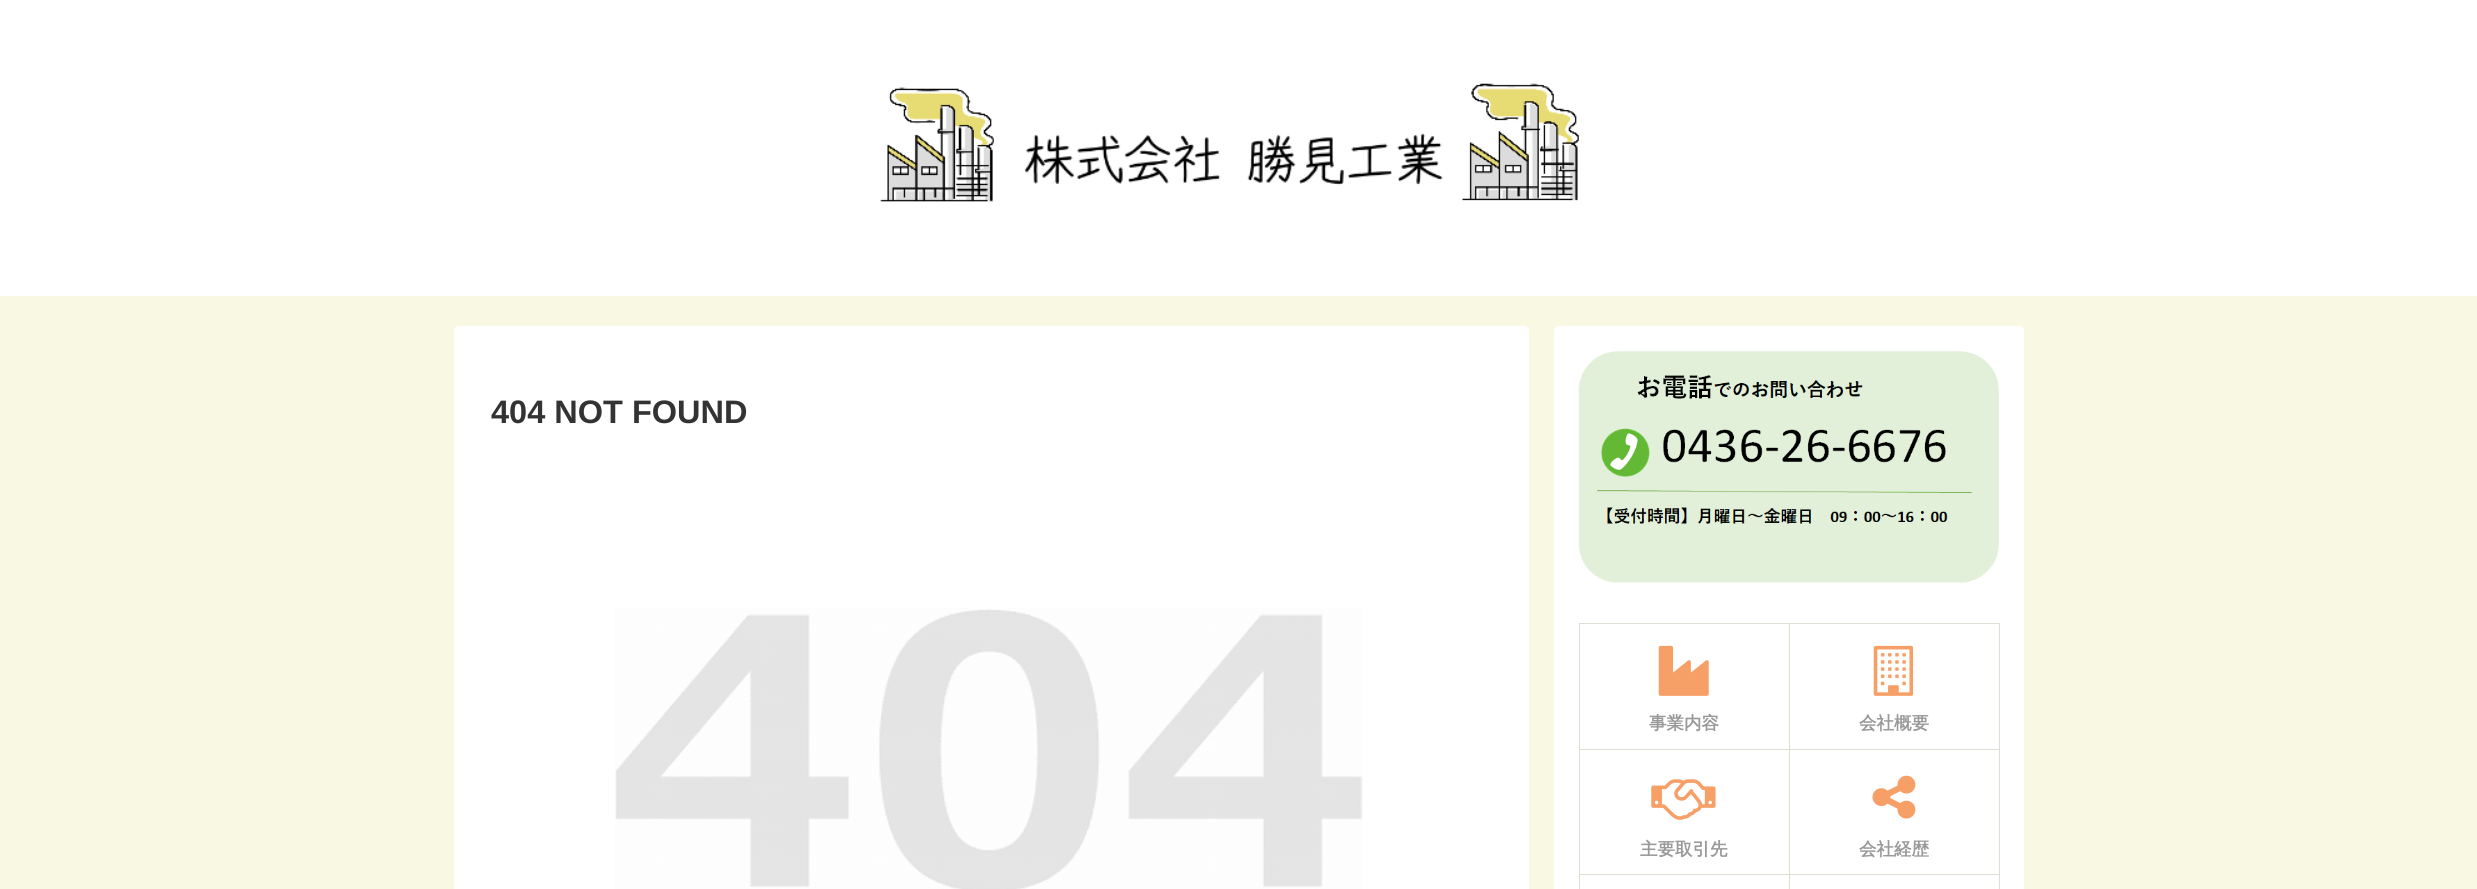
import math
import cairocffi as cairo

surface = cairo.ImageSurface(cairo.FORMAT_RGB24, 2477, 889)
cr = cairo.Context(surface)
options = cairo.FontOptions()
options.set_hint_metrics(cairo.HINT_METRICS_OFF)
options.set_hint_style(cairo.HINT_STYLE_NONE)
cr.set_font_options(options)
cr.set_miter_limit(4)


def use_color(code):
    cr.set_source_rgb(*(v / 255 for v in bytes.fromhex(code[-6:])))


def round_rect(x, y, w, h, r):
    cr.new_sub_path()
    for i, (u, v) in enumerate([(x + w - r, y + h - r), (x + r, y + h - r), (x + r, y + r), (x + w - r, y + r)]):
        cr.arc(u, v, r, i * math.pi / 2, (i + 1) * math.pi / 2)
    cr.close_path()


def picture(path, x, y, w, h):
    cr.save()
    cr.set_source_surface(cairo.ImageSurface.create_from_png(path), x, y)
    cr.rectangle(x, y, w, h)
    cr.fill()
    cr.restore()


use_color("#f9f9e3")
cr.paint()
use_color("#ffffff")
cr.rectangle(0, 0, 2477, 296)
cr.fill()
picture("img1.png", 879, 83, 700, 119)
round_rect(454, 326, 1075, 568, 5)
cr.fill()
cr.select_font_face("Liberation Sans", cairo.FONT_SLANT_NORMAL, cairo.FONT_WEIGHT_BOLD)
cr.set_font_size(32.5)
use_color("#333333")
cr.move_to(491, 423)
cr.show_text("404 NOT FOUND")
picture("img2.png", 615, 608, 748, 281)
use_color("#ffffff")
round_rect(1554, 326, 470, 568, 5)
cr.fill()
picture("img3.png", 1578, 351, 421, 232)
cr.save()
cr.rectangle(1579, 623, 210, 126)
cr.clip()
use_color("#e0ddd1")
cr.set_fill_rule(cairo.FILL_RULE_EVEN_ODD)
cr.new_path()
cr.move_to(1455, 499)
cr.line_to(1912, 499)
cr.line_to(1912, 872)
cr.line_to(1455, 872)
cr.close_path()
cr.move_to(1580, 624)
cr.line_to(1790, 624)
cr.line_to(1790, 750)
cr.line_to(1580, 750)
cr.close_path()
cr.fill()
cr.restore()
picture("img4.png", 1658, 645, 51, 51)
cr.select_font_face("WenQuanYi Zen Hei", cairo.FONT_SLANT_NORMAL, cairo.FONT_WEIGHT_BOLD)
cr.set_font_size(17.5)
use_color("#999999")
cr.move_to(1649, 729)
cr.show_text("事業内容")
use_color("#e0ddd1")
cr.new_path()
cr.move_to(1790, 749)
cr.line_to(2000, 749)
cr.line_to(2000, 623)
cr.line_to(1999, 623)
cr.line_to(1999, 749)
cr.close_path()
cr.fill()
cr.new_path()
cr.move_to(1790, 749)
cr.line_to(1790, 750)
cr.line_to(2000, 750)
cr.line_to(2000, 624)
cr.line_to(1999, 624)
cr.line_to(1999, 749)
cr.close_path()
cr.fill()
cr.save()
cr.rectangle(1789, 623, 210, 126)
cr.clip()
cr.set_fill_rule(cairo.FILL_RULE_EVEN_ODD)
cr.new_path()
cr.move_to(1665, 499)
cr.line_to(2122, 499)
cr.line_to(2122, 872)
cr.line_to(1665, 872)
cr.close_path()
cr.move_to(1790, 624)
cr.line_to(2000, 624)
cr.line_to(2000, 750)
cr.line_to(1790, 750)
cr.close_path()
cr.fill()
cr.restore()
picture("img5.png", 1873, 645, 41, 51)
use_color("#999999")
cr.move_to(1859, 729)
cr.show_text("会社概要")
cr.save()
cr.rectangle(1579, 749, 210, 125)
cr.clip()
use_color("#e0ddd1")
cr.set_fill_rule(cairo.FILL_RULE_EVEN_ODD)
cr.new_path()
cr.move_to(1455, 625)
cr.line_to(1912, 625)
cr.line_to(1912, 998)
cr.line_to(1455, 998)
cr.close_path()
cr.move_to(1580, 750)
cr.line_to(1790, 750)
cr.line_to(1790, 875)
cr.line_to(1580, 875)
cr.close_path()
cr.fill()
cr.restore()
picture("img6.png", 1651, 779, 65, 41)
cr.move_to(1640, 855)
cr.show_text("主要取引先")
use_color("#e0ddd1")
cr.new_path()
cr.move_to(1790, 874)
cr.line_to(2000, 874)
cr.line_to(2000, 749)
cr.line_to(1999, 749)
cr.line_to(1999, 874)
cr.close_path()
cr.fill()
cr.new_path()
cr.move_to(1790, 874)
cr.line_to(1790, 875)
cr.line_to(2000, 875)
cr.line_to(2000, 750)
cr.line_to(1999, 750)
cr.line_to(1999, 874)
cr.close_path()
cr.fill()
cr.save()
cr.rectangle(1789, 749, 210, 125)
cr.clip()
cr.set_fill_rule(cairo.FILL_RULE_EVEN_ODD)
cr.new_path()
cr.move_to(1665, 625)
cr.line_to(2122, 625)
cr.line_to(2122, 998)
cr.line_to(1665, 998)
cr.close_path()
cr.move_to(1790, 750)
cr.line_to(2000, 750)
cr.line_to(2000, 875)
cr.line_to(1790, 875)
cr.close_path()
cr.fill()
cr.restore()
picture("img7.png", 1872, 775, 44, 44)
use_color("#999999")
cr.move_to(1859, 855)
cr.show_text("会社経歴")
cr.save()
cr.rectangle(1579, 874, 210, 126)
cr.clip()
use_color("#e0ddd1")
cr.set_fill_rule(cairo.FILL_RULE_EVEN_ODD)
cr.new_path()
cr.move_to(1455, 750)
cr.line_to(1912, 750)
cr.line_to(1912, 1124)
cr.line_to(1455, 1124)
cr.close_path()
cr.move_to(1580, 875)
cr.line_to(1790, 875)
cr.line_to(1790, 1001)
cr.line_to(1580, 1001)
cr.close_path()
cr.fill()
cr.restore()
use_color("#e0ddd1")
cr.rectangle(1999, 874, 1, 15)
cr.fill()
cr.save()
cr.rectangle(1789, 874, 210, 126)
cr.clip()
cr.set_fill_rule(cairo.FILL_RULE_EVEN_ODD)
cr.new_path()
cr.move_to(1665, 750)
cr.line_to(2122, 750)
cr.line_to(2122, 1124)
cr.line_to(1665, 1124)
cr.close_path()
cr.move_to(1790, 875)
cr.line_to(2000, 875)
cr.line_to(2000, 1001)
cr.line_to(1790, 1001)
cr.close_path()
cr.fill()
cr.restore()
surface.write_to_png("result.png")
